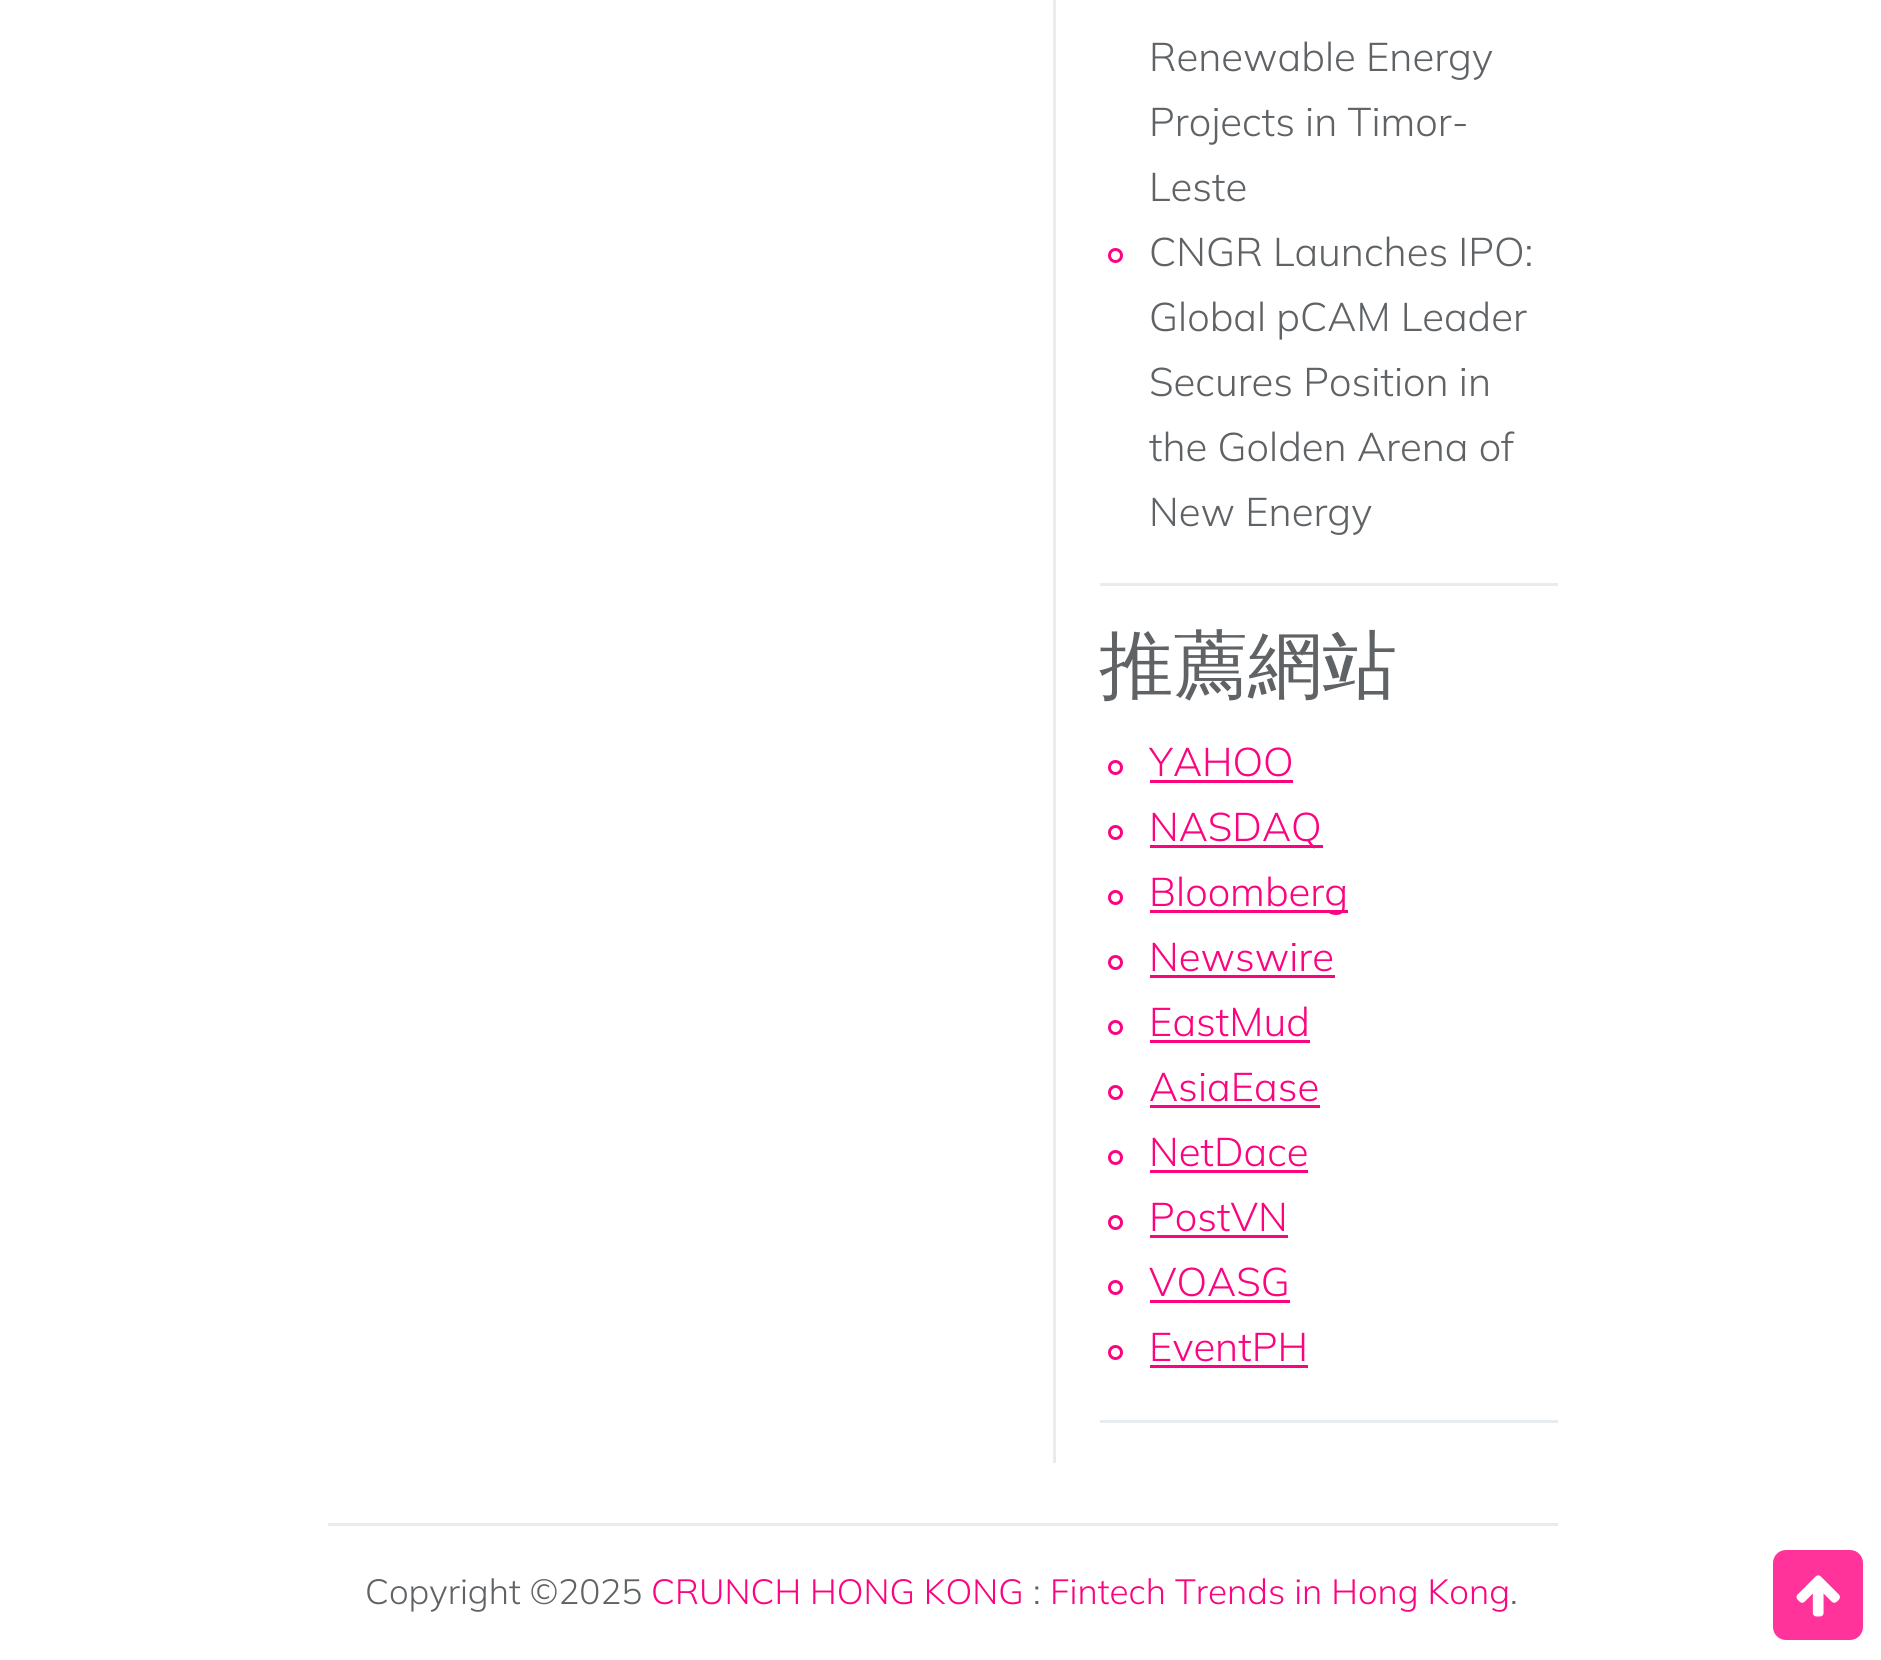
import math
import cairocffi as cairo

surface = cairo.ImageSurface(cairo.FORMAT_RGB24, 1881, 1660)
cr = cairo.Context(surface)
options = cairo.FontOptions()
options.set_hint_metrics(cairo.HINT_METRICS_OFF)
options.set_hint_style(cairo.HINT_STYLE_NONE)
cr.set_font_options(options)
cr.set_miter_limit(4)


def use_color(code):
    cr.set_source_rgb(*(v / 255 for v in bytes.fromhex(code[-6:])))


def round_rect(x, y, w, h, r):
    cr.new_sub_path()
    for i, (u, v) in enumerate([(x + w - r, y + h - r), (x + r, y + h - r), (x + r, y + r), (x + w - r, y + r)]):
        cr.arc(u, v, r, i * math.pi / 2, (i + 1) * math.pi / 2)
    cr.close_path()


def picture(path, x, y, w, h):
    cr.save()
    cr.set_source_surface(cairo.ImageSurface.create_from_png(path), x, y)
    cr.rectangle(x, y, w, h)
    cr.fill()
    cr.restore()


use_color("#ffffff")
cr.paint()
use_color("#e9ecef")
cr.rectangle(1053, 0, 3, 1463)
cr.fill()
cr.rectangle(1100, 583, 458, 3)
cr.fill()
cr.select_font_face("Mulish Light")
cr.set_font_size(40)
use_color("#606366")
cr.move_to(1149, 71)
cr.show_text("Renewable Energy")
cr.move_to(1149, 136)
cr.show_text("Projects in Timor-")
cr.move_to(1149, 201)
cr.show_text("Leste")
cr.new_path()
cr.arc(1115.5, 255.5, 6, 0, 2 * math.pi)
use_color("#fc0380")
cr.set_line_width(3)
cr.stroke()
use_color("#606366")
cr.move_to(1149, 266)
cr.show_text("CNGR Launches IPO:")
cr.move_to(1149, 331)
cr.show_text("Global pCAM Leader")
cr.move_to(1149, 396)
cr.show_text("Secures Position in")
cr.move_to(1149, 461)
cr.show_text("the Golden Arena of")
cr.move_to(1149, 526)
cr.show_text("New Energy")
use_color("#e9ecef")
cr.rectangle(1100, 1420, 458, 3)
cr.fill()
cr.select_font_face("WenQuanYi Zen Hei Medium")
cr.set_font_size(74.5)
use_color("#606366")
cr.move_to(1099, 691)
cr.show_text("推薦網站")
cr.new_path()
cr.arc(1115.5, 767.5, 6, 0, 2 * math.pi)
use_color("#fc0380")
cr.stroke()
cr.select_font_face("Mulish Light")
cr.set_font_size(40)
cr.move_to(1149, 776)
cr.show_text("YAHOO")
cr.rectangle(1150, 780, 143, 3)
cr.fill()
cr.arc(1115.5, 832.5, 6, 0, 2 * math.pi)
cr.stroke()
cr.rectangle(1150, 845, 173, 3)
cr.fill()
cr.move_to(1149, 841)
cr.show_text("NASDAQ")
cr.new_path()
cr.arc(1115.5, 897.5, 6, 0, 2 * math.pi)
cr.stroke()
cr.rectangle(1150, 910, 198, 3)
cr.fill()
cr.move_to(1149, 906)
cr.show_text("Bloomberg")
cr.new_path()
cr.arc(1115.5, 962.5, 6, 0, 2 * math.pi)
cr.stroke()
cr.move_to(1149, 971)
cr.show_text("Newswire")
cr.rectangle(1150, 975, 185, 3)
cr.fill()
cr.arc(1115.5, 1027.5, 6, 0, 2 * math.pi)
cr.stroke()
cr.move_to(1149, 1036)
cr.show_text("EastMud")
cr.rectangle(1150, 1040, 160, 3)
cr.fill()
cr.arc(1115.5, 1092.5, 6, 0, 2 * math.pi)
cr.stroke()
cr.move_to(1149, 1101)
cr.show_text("AsiaEase")
cr.rectangle(1150, 1105, 170, 3)
cr.fill()
cr.arc(1115.5, 1157.5, 6, 0, 2 * math.pi)
cr.stroke()
cr.move_to(1149, 1166)
cr.show_text("NetDace")
cr.rectangle(1150, 1170, 158, 3)
cr.fill()
cr.arc(1115.5, 1222.5, 6, 0, 2 * math.pi)
cr.stroke()
cr.move_to(1149, 1231)
cr.show_text("PostVN")
cr.rectangle(1150, 1235, 138, 3)
cr.fill()
cr.arc(1115.5, 1287.5, 6, 0, 2 * math.pi)
cr.stroke()
cr.move_to(1149, 1296)
cr.show_text("VOASG")
cr.rectangle(1150, 1300, 140, 3)
cr.fill()
cr.arc(1115.5, 1352.5, 6, 0, 2 * math.pi)
cr.stroke()
cr.move_to(1149, 1361)
cr.show_text("EventPH")
cr.rectangle(1150, 1365, 158, 3)
cr.fill()
use_color("#e9ecef")
cr.rectangle(328, 1523, 1230, 3)
cr.fill()
cr.set_font_size(35)
use_color("#606366")
cr.move_to(365, 1604)
cr.show_text("Copyright ©2025")
use_color("#fc0380")
cr.move_to(651, 1604)
cr.show_text("CRUNCH HONG KONG")
use_color("#606366")
cr.move_to(1033, 1604)
cr.show_text(":")
use_color("#fc0380")
cr.move_to(1050, 1604)
cr.show_text("Fintech Trends in Hong Kong")
use_color("#606366")
cr.move_to(1510, 1604)
cr.show_text(".")
use_color("#ff3399")
round_rect(1775.5, 1552.5, 85, 85, 10.5)
cr.fill_preserve()
cr.set_line_width(5)
cr.stroke()
picture("img1.png", 1796, 1575, 44, 42)
surface.write_to_png("result.png")
